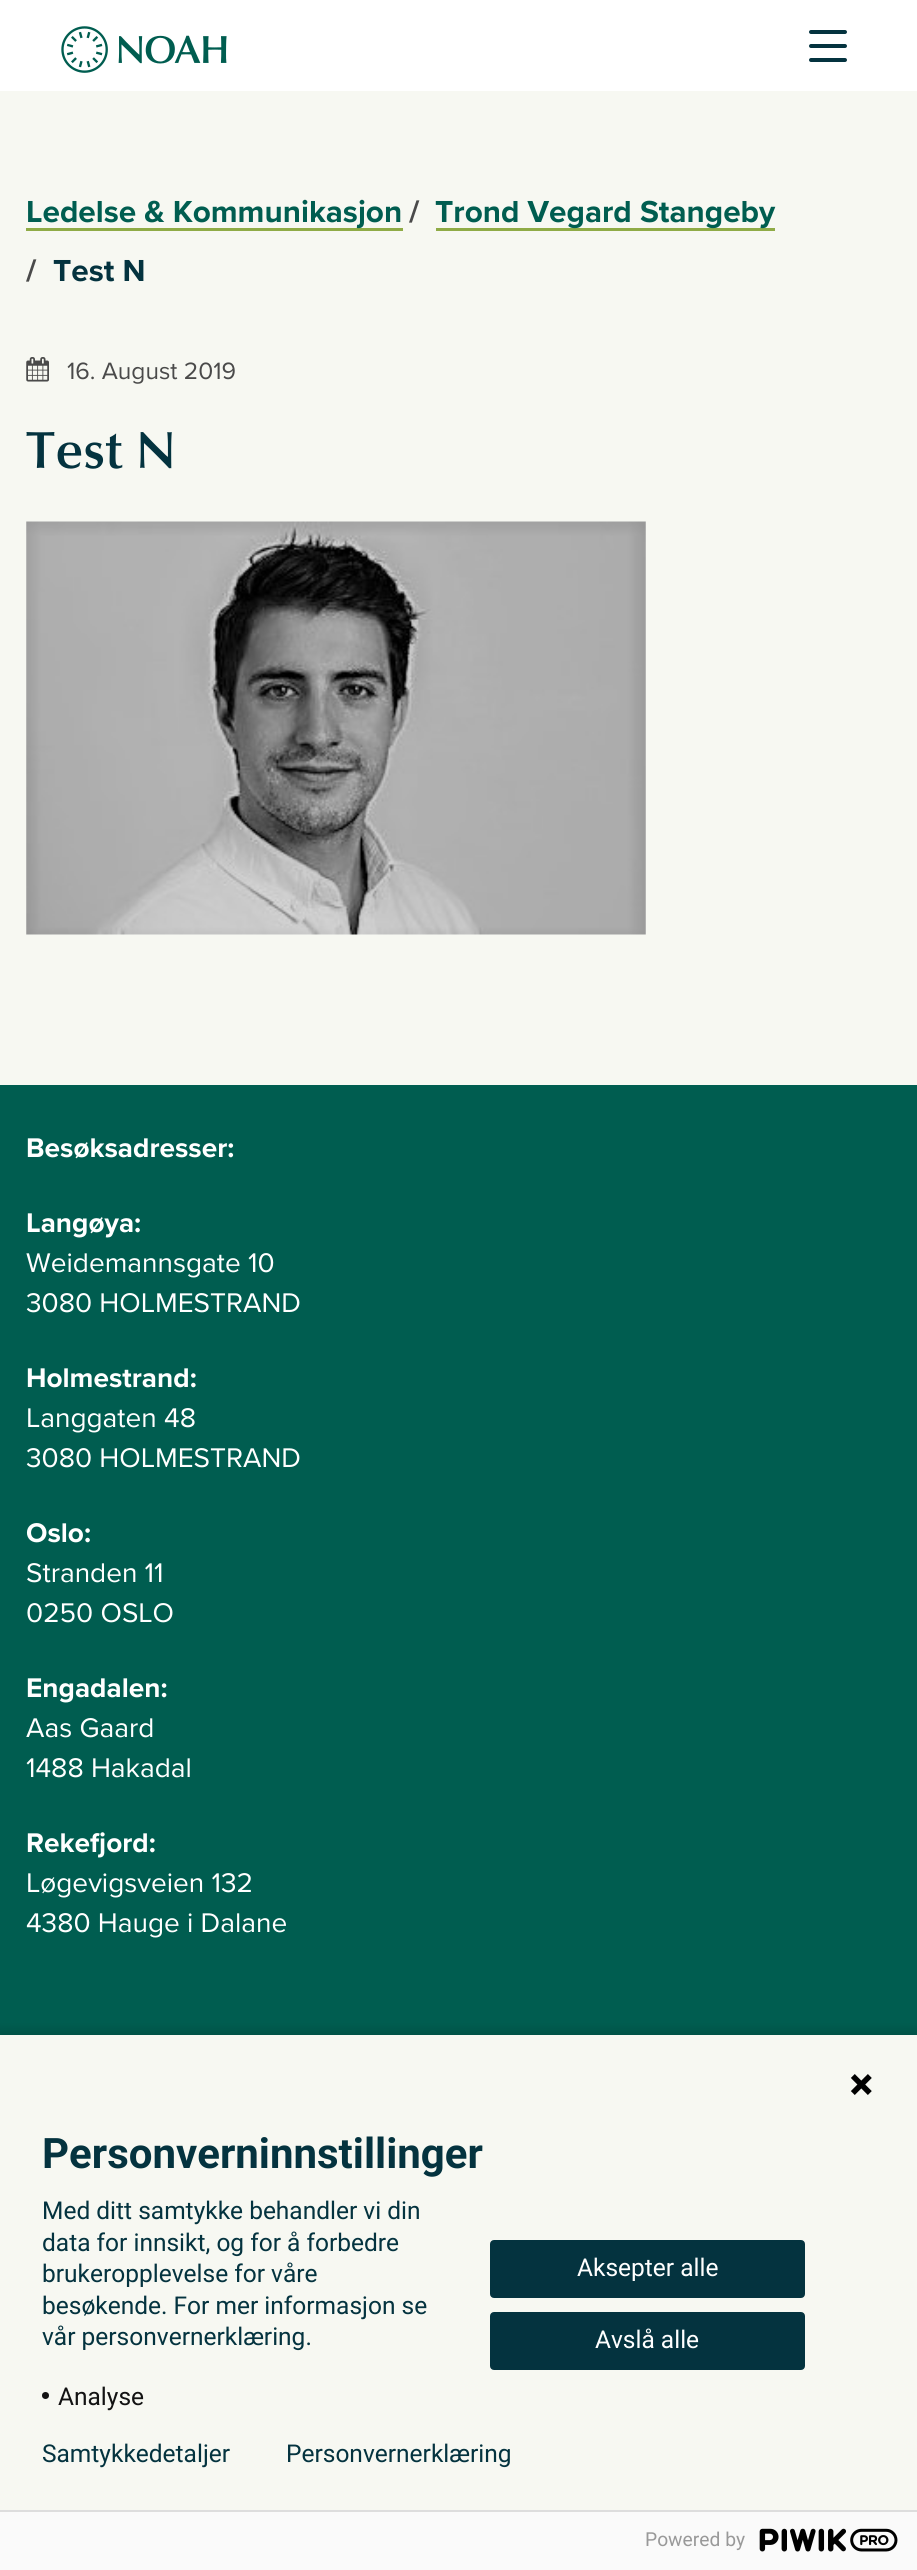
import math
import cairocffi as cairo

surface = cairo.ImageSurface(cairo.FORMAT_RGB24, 917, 2570)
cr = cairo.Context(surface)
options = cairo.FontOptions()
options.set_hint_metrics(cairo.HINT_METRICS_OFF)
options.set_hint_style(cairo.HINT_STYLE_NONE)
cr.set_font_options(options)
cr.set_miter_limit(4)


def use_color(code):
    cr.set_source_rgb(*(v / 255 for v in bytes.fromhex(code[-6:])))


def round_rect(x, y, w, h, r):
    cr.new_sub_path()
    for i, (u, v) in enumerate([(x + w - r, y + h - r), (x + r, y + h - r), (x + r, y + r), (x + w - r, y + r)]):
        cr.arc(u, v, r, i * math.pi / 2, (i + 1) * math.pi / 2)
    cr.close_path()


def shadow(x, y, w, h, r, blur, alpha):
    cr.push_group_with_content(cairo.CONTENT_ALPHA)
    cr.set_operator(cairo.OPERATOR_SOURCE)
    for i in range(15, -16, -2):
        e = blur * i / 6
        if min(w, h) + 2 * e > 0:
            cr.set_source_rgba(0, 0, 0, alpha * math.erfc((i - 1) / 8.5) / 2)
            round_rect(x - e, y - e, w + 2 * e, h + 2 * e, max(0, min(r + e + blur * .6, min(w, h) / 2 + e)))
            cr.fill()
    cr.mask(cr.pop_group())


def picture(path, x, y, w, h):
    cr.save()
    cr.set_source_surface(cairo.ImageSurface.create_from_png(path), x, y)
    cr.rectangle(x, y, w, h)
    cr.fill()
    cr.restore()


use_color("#f7f8f2")
cr.paint()
use_color("#ffffff")
cr.rectangle(0, 0, 917, 91)
cr.fill()
picture("img1.png", 61, 26, 166, 47)
use_color("#04333f")
round_rect(809, 30, 38, 4, 2)
cr.fill()
round_rect(809, 44, 38, 4, 2)
cr.fill()
round_rect(809, 58, 38, 4, 2)
cr.fill()
use_color("#8fab46")
cr.rectangle(26, 228, 377, 3)
cr.fill()
cr.select_font_face("Proxima Nova", cairo.FONT_SLANT_NORMAL, cairo.FONT_WEIGHT_BOLD)
cr.set_font_size(31.5)
use_color("#005d50")
cr.move_to(26, 222)
cr.show_text("Ledelse & Kommunikasjon")
use_color("#4a4a4a")
cr.move_to(409, 222)
cr.show_text("/")
use_color("#8fab46")
cr.rectangle(436, 228, 339, 3)
cr.fill()
use_color("#005d50")
cr.move_to(435, 222)
cr.show_text("Trond Vegard Stangeby")
use_color("#4a4a4a")
cr.move_to(26, 281)
cr.show_text("/")
use_color("#04333f")
cr.move_to(53, 281)
cr.show_text("Test N")
picture("img2.png", 26, 357, 23, 25)
cr.select_font_face("Proxima Nova")
cr.set_font_size(24.5)
use_color("#4a4a4a")
cr.move_to(67, 379)
cr.show_text("16. August 2019")
cr.select_font_face("Optima SemiBold")
cr.set_font_size(52.5)
use_color("#04333f")
cr.move_to(26, 468)
cr.show_text("Test N")
picture("img3.png", 26, 521, 620, 414)
use_color("#005d50")
cr.rectangle(0, 1085, 917, 950)
cr.fill()
cr.select_font_face("Proxima Nova", cairo.FONT_SLANT_NORMAL, cairo.FONT_WEIGHT_BOLD)
cr.set_font_size(28)
use_color("#ffffff")
cr.move_to(26, 1157)
cr.show_text("Besøksadresser:")
cr.move_to(26, 1232)
cr.show_text("Langøya:")
cr.select_font_face("Proxima Nova")
cr.move_to(26, 1272)
cr.show_text("Weidemannsgate 10")
cr.move_to(26, 1312)
cr.show_text("3080 HOLMESTRAND")
cr.select_font_face("Proxima Nova", cairo.FONT_SLANT_NORMAL, cairo.FONT_WEIGHT_BOLD)
cr.move_to(26, 1387)
cr.show_text("Holmestrand:")
cr.select_font_face("Proxima Nova")
cr.move_to(26, 1427)
cr.show_text("Langgaten 48")
cr.move_to(26, 1467)
cr.show_text("3080 HOLMESTRAND")
cr.select_font_face("Proxima Nova", cairo.FONT_SLANT_NORMAL, cairo.FONT_WEIGHT_BOLD)
cr.move_to(26, 1542)
cr.show_text("Oslo:")
cr.select_font_face("Proxima Nova")
cr.move_to(26, 1582)
cr.show_text("Stranden 11")
cr.move_to(26, 1622)
cr.show_text("0250 OSLO")
cr.select_font_face("Proxima Nova", cairo.FONT_SLANT_NORMAL, cairo.FONT_WEIGHT_BOLD)
cr.move_to(26, 1697)
cr.show_text("Engadalen:")
cr.select_font_face("Proxima Nova")
cr.move_to(26, 1737)
cr.show_text("Aas Gaard")
cr.move_to(26, 1777)
cr.show_text("1488 Hakadal")
cr.select_font_face("Proxima Nova", cairo.FONT_SLANT_NORMAL, cairo.FONT_WEIGHT_BOLD)
cr.move_to(26, 1852)
cr.show_text("Rekefjord:")
cr.select_font_face("Proxima Nova")
cr.move_to(26, 1892)
cr.show_text("Løgevigsveien 132")
cr.move_to(26, 1932)
cr.show_text("4380 Hauge i Dalane")
use_color("#000000")
shadow(-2, 2030, 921, 539, 0, 4.5, 0.14)
use_color("#f7f8f2")
cr.rectangle(0, 2035, 917, 475)
cr.fill()
picture("img4.png", 850, 2074, 22, 21)
cr.select_font_face("Roboto", cairo.FONT_SLANT_NORMAL, cairo.FONT_WEIGHT_BOLD)
cr.set_font_size(42)
use_color("#04333f")
cr.move_to(42, 2168)
cr.show_text("Personverninnstillinger")
cr.select_font_face("Roboto")
cr.set_font_size(24.5)
cr.move_to(42, 2219)
cr.show_text("Med ditt samtykke behandler vi din")
cr.move_to(42, 2251)
cr.show_text("data for innsikt, og for å forbedre")
cr.move_to(42, 2282)
cr.show_text("brukeropplevelse for våre")
cr.move_to(42, 2314)
cr.show_text("besøkende. For mer informasjon se")
cr.move_to(42, 2345)
cr.show_text("vår personvernerklæring.")
use_color("#131313")
cr.new_path()
cr.arc(45.5, 2395.5, 3.5, 0, 2 * math.pi)
cr.fill()
cr.move_to(58, 2405)
cr.show_text("Analyse")
use_color("#04333f")
round_rect(491, 2241, 313, 56, 3)
cr.fill_preserve()
cr.stroke()
use_color("#ffffff")
cr.move_to(577, 2276)
cr.show_text("Aksepter alle")
use_color("#04333f")
round_rect(491, 2313, 313, 56, 3)
cr.fill_preserve()
cr.stroke()
use_color("#ffffff")
cr.move_to(595, 2348)
cr.show_text("Avslå alle")
use_color("#04333f")
cr.move_to(42, 2462)
cr.show_text("Samtykkedetaljer")
cr.move_to(286, 2462)
cr.show_text("Personvernerklæring")
use_color("#fafafa")
cr.rectangle(0, 2512, 917, 58)
cr.fill()
use_color("#dddddd")
cr.rectangle(0, 2510, 917, 2)
cr.fill()
cr.set_font_size(19.25)
use_color("#999999")
cr.move_to(645, 2546)
cr.show_text("Powered by")
picture("img5.png", 759, 2528, 139, 24)
surface.write_to_png("result.png")
